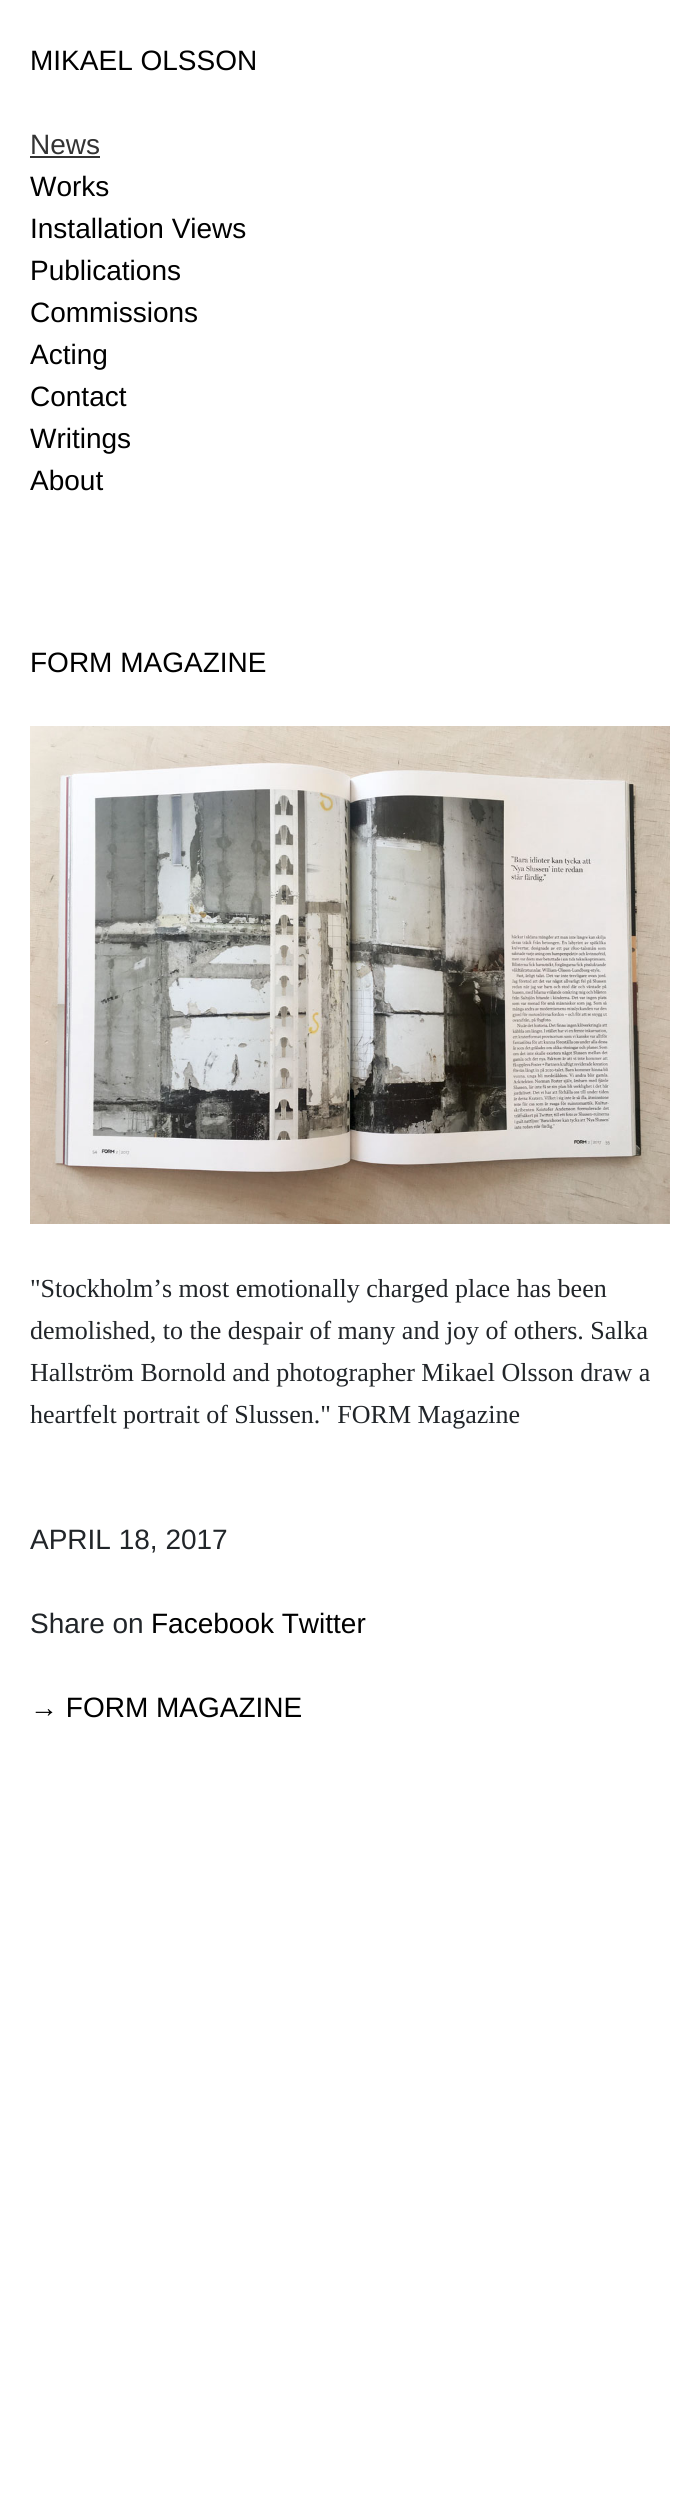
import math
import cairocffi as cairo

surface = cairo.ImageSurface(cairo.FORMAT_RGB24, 699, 2506)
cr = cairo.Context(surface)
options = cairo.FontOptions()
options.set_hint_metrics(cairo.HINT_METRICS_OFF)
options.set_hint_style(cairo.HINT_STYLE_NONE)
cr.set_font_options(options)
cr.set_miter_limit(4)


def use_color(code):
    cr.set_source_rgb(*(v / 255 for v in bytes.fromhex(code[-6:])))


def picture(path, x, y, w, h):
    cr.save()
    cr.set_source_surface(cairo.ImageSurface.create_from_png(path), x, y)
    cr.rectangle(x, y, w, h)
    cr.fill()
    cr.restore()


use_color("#ffffff")
cr.paint()
cr.select_font_face("Liberation Sans")
cr.set_font_size(28)
use_color("#000000")
cr.move_to(30, 70)
cr.show_text("MIKAEL OLSSON")
use_color("#333333")
cr.move_to(30, 154)
cr.show_text("News")
cr.rectangle(30, 156, 70, 2)
cr.fill()
use_color("#000000")
cr.move_to(30, 196)
cr.show_text("Works")
cr.move_to(30, 238)
cr.show_text("Installation Views")
cr.move_to(30, 280)
cr.show_text("Publications")
cr.move_to(30, 322)
cr.show_text("Commissions")
cr.move_to(30, 364)
cr.show_text("Acting")
cr.move_to(30, 406)
cr.show_text("Contact")
cr.move_to(30, 448)
cr.show_text("Writings")
cr.move_to(30, 490)
cr.show_text("About")
cr.move_to(30, 672)
cr.show_text("FORM MAGAZINE")
picture("img1.png", 30, 726, 640, 498)
cr.select_font_face("Liberation Serif")
cr.set_font_size(26)
use_color("#212529")
cr.move_to(30, 1297)
cr.show_text("\"Stockholm’s most emotionally charged place has been")
cr.move_to(30, 1339)
cr.show_text("demolished, to the despair of many and joy of others. Salka")
cr.move_to(30, 1381)
cr.show_text("Hallström Bornold and photographer Mikael Olsson draw a")
cr.move_to(30, 1423)
cr.show_text("heartfelt portrait of Slussen.\" FORM Magazine")
cr.select_font_face("Liberation Sans")
cr.set_font_size(28)
cr.move_to(30, 1549)
cr.show_text("APRIL 18, 2017")
cr.move_to(30, 1633)
cr.show_text("Share on")
use_color("#000000")
cr.move_to(151, 1633)
cr.show_text("Facebook Twitter")
cr.move_to(30, 1717)
cr.show_text("→ FORM MAGAZINE")
surface.write_to_png("result.png")
